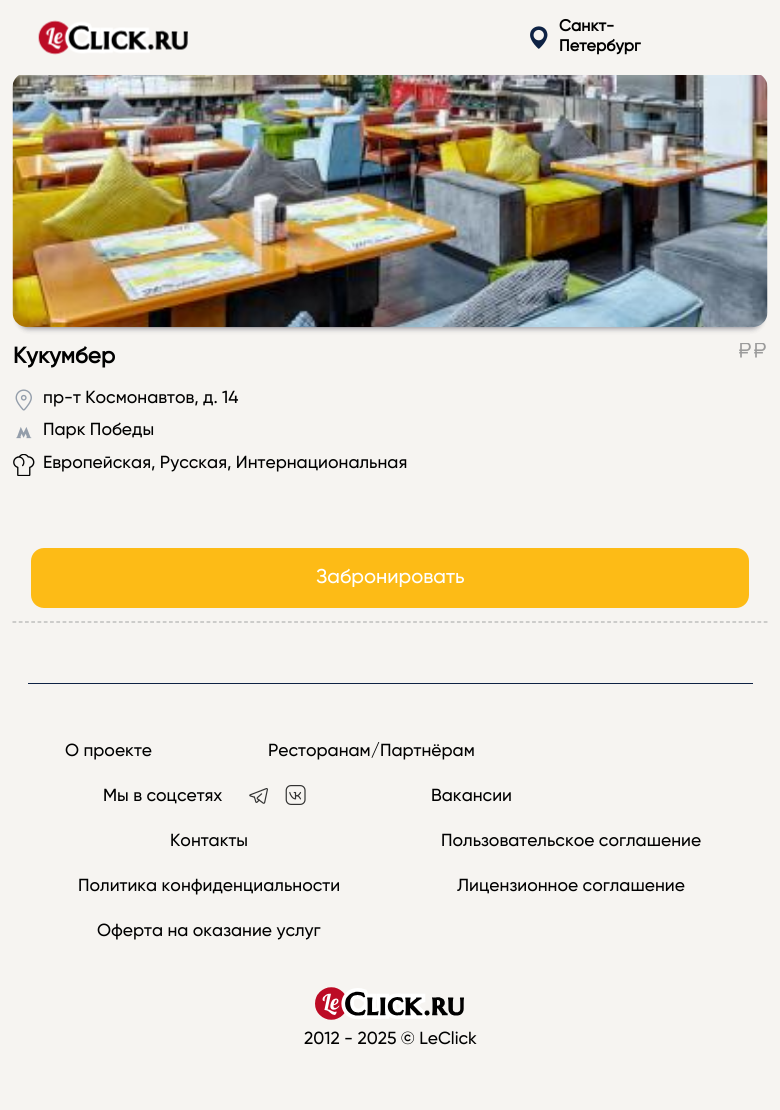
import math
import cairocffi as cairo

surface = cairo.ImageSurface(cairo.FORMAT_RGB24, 780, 1110)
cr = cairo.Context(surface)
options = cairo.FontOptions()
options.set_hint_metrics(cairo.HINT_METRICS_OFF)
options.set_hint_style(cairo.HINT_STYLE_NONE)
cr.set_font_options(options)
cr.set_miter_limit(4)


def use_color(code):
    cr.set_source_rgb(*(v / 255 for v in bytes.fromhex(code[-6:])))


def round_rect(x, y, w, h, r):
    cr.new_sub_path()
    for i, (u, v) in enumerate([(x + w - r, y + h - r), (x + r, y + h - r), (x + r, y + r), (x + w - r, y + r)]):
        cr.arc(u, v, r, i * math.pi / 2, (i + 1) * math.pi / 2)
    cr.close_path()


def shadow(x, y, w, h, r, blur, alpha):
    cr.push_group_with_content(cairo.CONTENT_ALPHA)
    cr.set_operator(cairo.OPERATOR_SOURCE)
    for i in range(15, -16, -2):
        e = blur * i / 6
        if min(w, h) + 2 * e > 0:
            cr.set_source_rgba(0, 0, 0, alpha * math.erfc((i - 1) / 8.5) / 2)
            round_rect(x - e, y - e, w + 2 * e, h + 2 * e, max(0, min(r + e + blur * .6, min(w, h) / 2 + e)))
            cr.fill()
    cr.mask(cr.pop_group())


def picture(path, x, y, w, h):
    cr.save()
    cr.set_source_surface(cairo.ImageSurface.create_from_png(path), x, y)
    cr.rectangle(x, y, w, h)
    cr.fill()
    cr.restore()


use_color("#f6f4f1")
cr.paint()
picture("img1.png", 38, 20, 150, 35)
picture("img2.png", 530, 26, 18, 23)
cr.select_font_face("Gilroy", cairo.FONT_SLANT_NORMAL, cairo.FONT_WEIGHT_BOLD)
cr.set_font_size(16.25)
use_color("#000000")
cr.move_to(559, 31)
cr.show_text("Санкт-")
cr.move_to(559, 51)
cr.show_text("Петербург")
cr.new_path()
cr.move_to(12.5, 622)
cr.line_to(767.5, 622)
use_color("#b1b1b1")
cr.set_line_width(1.2)
cr.set_dash([3.75, 2.51])
cr.stroke()
use_color("#000000")
shadow(19, 85, 742, 243, 9, 3, 0.3)
use_color("#32325d")
shadow(19, 85, 742, 243, 9, 3, 0.25)
picture("img3.png", 12, 75, 756, 253)
cr.set_font_size(22.5)
use_color("#000000")
cr.move_to(13, 363)
cr.show_text("Кукумбер")
picture("img4.png", 739, 343, 12, 15)
picture("img4.png", 754, 343, 12, 15)
picture("img5.png", 15, 389, 17, 22)
cr.select_font_face("Gilroy Medium")
cr.set_font_size(17.5)
cr.move_to(43, 403)
cr.show_text("пр-т Космонавтов, д. 14")
picture("img6.png", 16, 427, 16, 12)
cr.move_to(43, 435)
cr.show_text("Парк Победы")
picture("img7.png", 13, 454, 22, 22)
cr.move_to(43, 468)
cr.show_text("Европейская, Русская, Интернациональная")
use_color("#fdbb16")
round_rect(31, 548, 718, 60, 13)
cr.fill()
cr.set_font_size(20)
use_color("#ffffff")
cr.move_to(316, 583)
cr.show_text("Забронировать")
use_color("#0e2244")
cr.rectangle(28, 683, 725, 1)
cr.fill()
cr.set_font_size(17.5)
use_color("#000000")
cr.move_to(65, 756)
cr.show_text("О проекте")
cr.move_to(268, 756)
cr.show_text("Ресторанам/Партнёрам")
cr.move_to(103, 801)
cr.show_text("Мы в соцсетях")
picture("img8.png", 249, 788, 19, 16)
picture("img9.png", 285, 785, 21, 20)
cr.move_to(431, 801)
cr.show_text("Вакансии")
cr.move_to(170, 846)
cr.show_text("Контакты")
cr.move_to(441, 846)
cr.show_text("Пользовательское соглашение")
cr.move_to(78, 891)
cr.show_text("Политика конфиденциальности")
cr.move_to(457, 891)
cr.show_text("Лицензионное соглашение")
cr.move_to(97, 936)
cr.show_text("Оферта на оказание услуг")
picture("img10.png", 315, 987, 149, 33)
cr.move_to(304, 1044)
cr.show_text("2012 - 2025 © LeClick")
surface.write_to_png("result.png")
